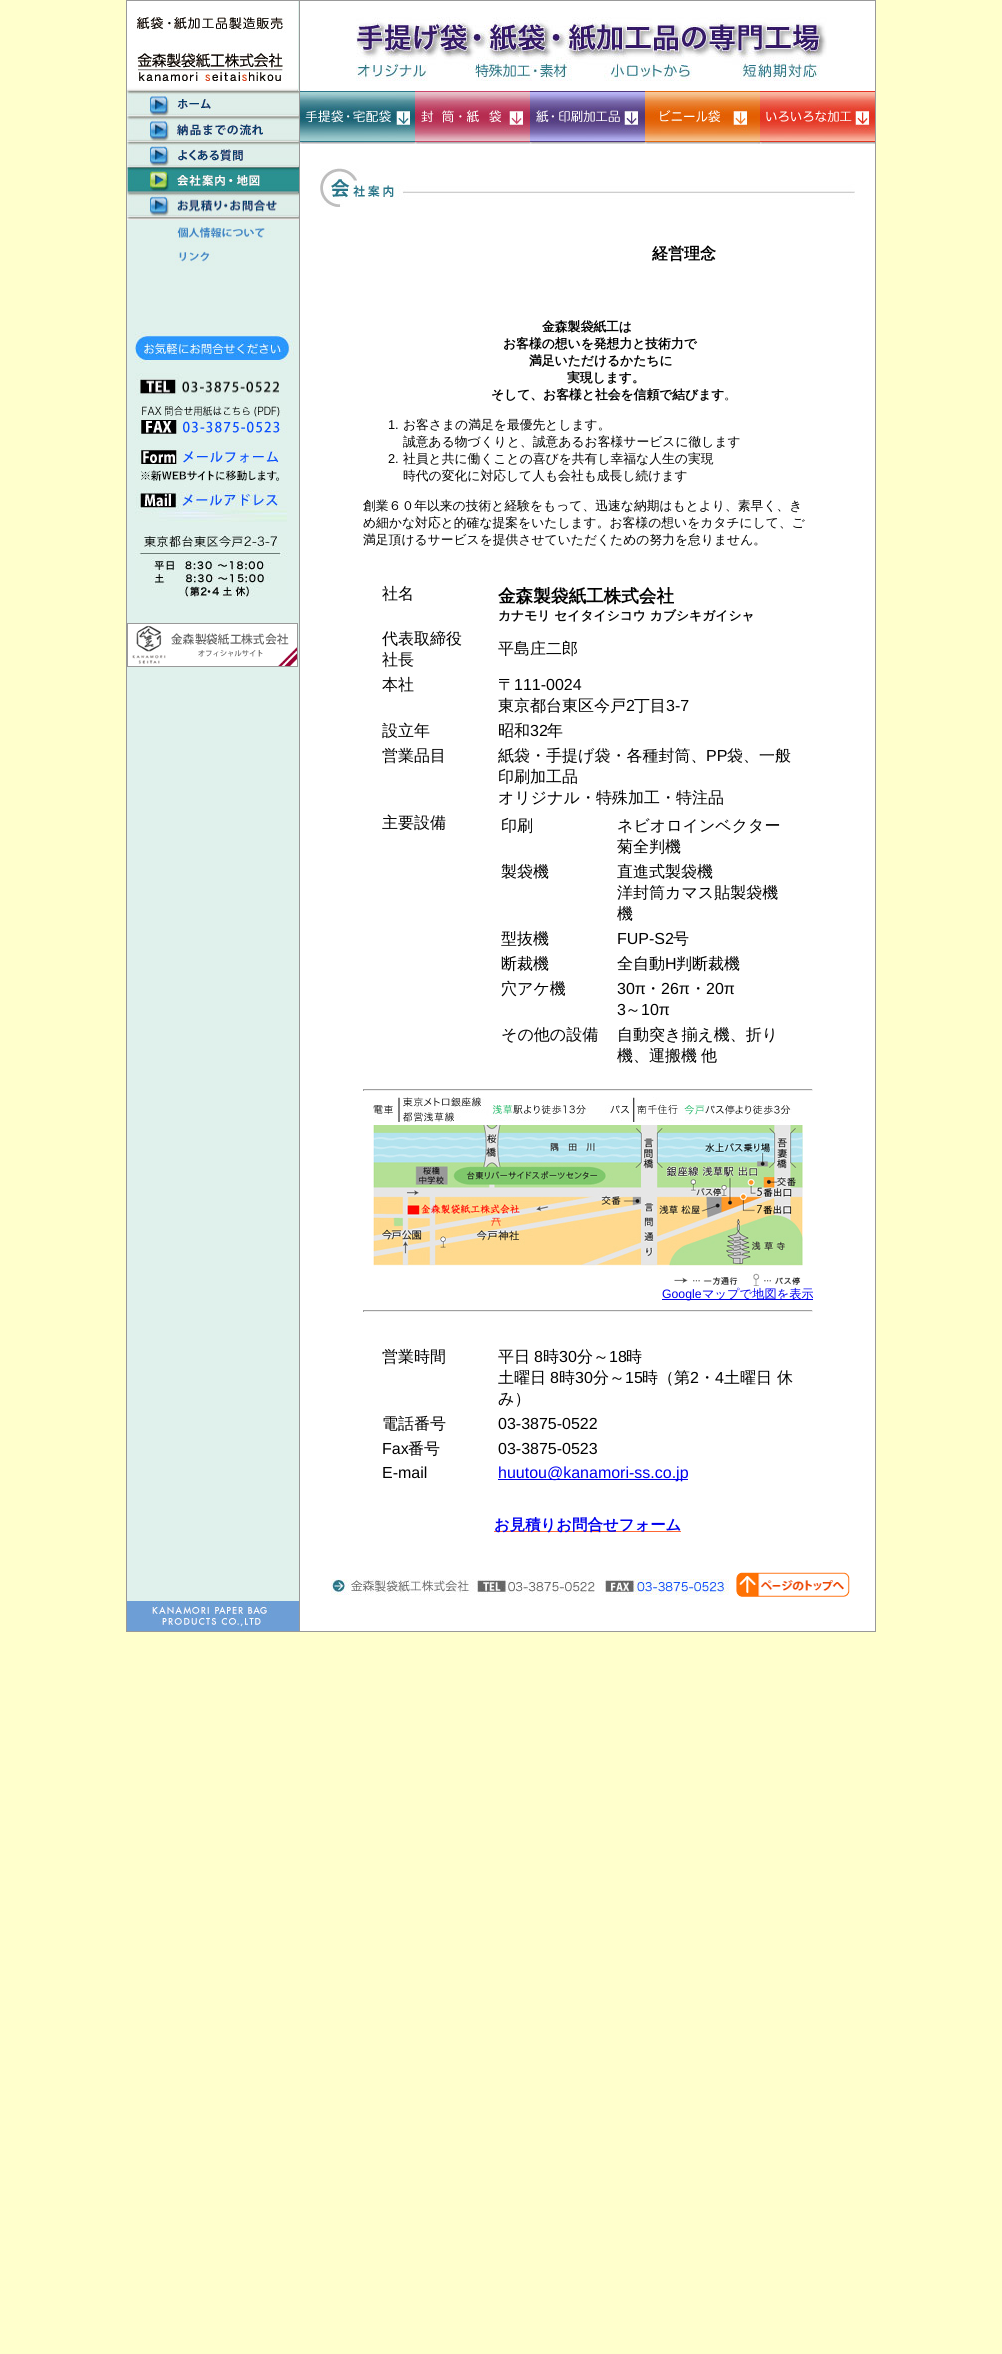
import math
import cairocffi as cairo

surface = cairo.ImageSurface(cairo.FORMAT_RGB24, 1002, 2354)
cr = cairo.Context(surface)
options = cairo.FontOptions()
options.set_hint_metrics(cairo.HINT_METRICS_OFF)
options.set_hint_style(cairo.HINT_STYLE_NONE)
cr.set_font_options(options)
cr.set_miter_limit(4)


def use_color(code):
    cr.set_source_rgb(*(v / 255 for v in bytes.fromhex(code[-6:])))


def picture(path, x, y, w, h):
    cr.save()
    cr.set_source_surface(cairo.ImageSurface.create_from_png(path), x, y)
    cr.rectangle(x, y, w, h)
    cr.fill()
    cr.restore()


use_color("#ffffcc")
cr.paint()
use_color("#ffffff")
cr.rectangle(300, 1, 575, 1630)
cr.fill()
cr.rectangle(126.5, 0.5, 749, 1631)
use_color("#999999")
cr.set_line_width(1)
cr.stroke()
use_color("#e0f1ec")
cr.rectangle(298, 1, 1, 90)
cr.fill()
use_color("#999999")
cr.rectangle(299, 1, 1, 1630)
cr.fill()
picture("img1.png", 127, 1, 171, 90)
picture("img2.png", 300, 17, 527, 74)
use_color("#e0f1ec")
cr.rectangle(127, 220, 172, 1381)
cr.fill()
picture("img3.png", 127, 91, 172, 25)
picture("img4.png", 127, 116, 172, 26)
picture("img5.png", 127, 142, 172, 25)
picture("img6.png", 127, 167, 172, 26)
picture("img7.png", 127, 193, 172, 27)
picture("img8.png", 175, 227, 96, 15)
picture("img9.png", 175, 251, 40, 15)
picture("img10.png", 135, 332, 160, 32)
picture("img11.png", 135, 373, 144, 23)
picture("img12.png", 135, 401, 152, 39)
picture("img13.png", 135, 448, 145, 40)
picture("img14.png", 135, 490, 152, 32)
picture("img15.png", 135, 534, 152, 64)
picture("img16.png", 127, 623, 171, 44)
picture("img17.png", 300, 91, 115, 53)
picture("img18.png", 415, 91, 115, 53)
picture("img19.png", 530, 91, 115, 53)
picture("img20.png", 645, 91, 115, 53)
picture("img21.png", 760, 91, 115, 53)
picture("img22.png", 320, 168, 535, 39)
cr.select_font_face("WenQuanYi Zen Hei", cairo.FONT_SLANT_NORMAL, cairo.FONT_WEIGHT_BOLD)
cr.set_font_size(16)
use_color("#000000")
cr.move_to(652, 259)
cr.show_text("経営理念")
cr.set_font_size(12.8)
cr.move_to(542, 331)
cr.show_text("金森製袋紙工は")
cr.move_to(503, 348)
cr.show_text("お客様の想いを発想力と技術力で")
cr.move_to(529, 365)
cr.show_text("満足いただけるかたちに")
cr.move_to(567, 382)
cr.show_text("実現します。")
cr.move_to(491, 399)
cr.show_text("そして、お客様と社会を信頼で結びます")
cr.select_font_face("WenQuanYi Zen Hei Medium")
cr.move_to(724, 399)
cr.show_text("。")
cr.select_font_face("Liberation Sans")
cr.move_to(388, 429)
cr.show_text("1.")
cr.select_font_face("WenQuanYi Zen Hei Medium")
cr.move_to(403, 429)
cr.show_text("お客さまの満足を最優先とします。")
cr.move_to(403, 446)
cr.show_text("誠意ある物づくりと、誠意あるお客様サービスに徹します")
cr.select_font_face("Liberation Sans")
cr.move_to(388, 463)
cr.show_text("2.")
cr.select_font_face("WenQuanYi Zen Hei Medium")
cr.move_to(403, 463)
cr.show_text("社員と共に働くことの喜びを共有し幸福な人生の実現")
cr.move_to(403, 480)
cr.show_text("時代の変化に対応して人も会社も成長し続けます")
cr.move_to(363, 510)
cr.show_text("創業６０年以来の技術と経験をもって、迅速な納期はもとより、素早く、き")
cr.move_to(363, 527)
cr.show_text("め細かな対応と的確な提案をいたします。お客様の想いをカタチにして、ご")
cr.move_to(363, 544)
cr.show_text("満足頂けるサービスを提供させていただくための努力を怠りません。")
cr.set_font_size(16)
cr.move_to(382, 599)
cr.show_text("社名")
cr.select_font_face("WenQuanYi Zen Hei", cairo.FONT_SLANT_NORMAL, cairo.FONT_WEIGHT_BOLD)
cr.set_font_size(17.6)
cr.move_to(498, 602)
cr.show_text("金森製袋紙工株式会社")
cr.set_font_size(12.8)
cr.move_to(498, 620)
cr.show_text("カナモリ セイタイシコウ カブシキガイシャ")
cr.select_font_face("WenQuanYi Zen Hei Medium")
cr.set_font_size(16)
cr.move_to(382, 644)
cr.show_text("代表取締役")
cr.move_to(382, 665)
cr.show_text("社長")
cr.move_to(498, 654)
cr.show_text("平島庄二郎")
cr.move_to(382, 690)
cr.show_text("本社")
cr.move_to(498, 690)
cr.show_text("〒")
cr.select_font_face("Liberation Sans")
cr.move_to(514, 690)
cr.show_text("111-0024")
cr.select_font_face("WenQuanYi Zen Hei Medium")
cr.move_to(498, 711)
cr.show_text("東京都台東区今戸")
cr.select_font_face("Liberation Sans")
cr.move_to(626, 711)
cr.show_text("2")
cr.select_font_face("WenQuanYi Zen Hei Medium")
cr.move_to(634, 711)
cr.show_text("丁目")
cr.select_font_face("Liberation Sans")
cr.move_to(666, 711)
cr.show_text("3-7")
cr.select_font_face("WenQuanYi Zen Hei Medium")
cr.move_to(382, 736)
cr.show_text("設立年")
cr.move_to(498, 736)
cr.show_text("昭和")
cr.select_font_face("Liberation Sans")
cr.move_to(530, 736)
cr.show_text("32")
cr.select_font_face("WenQuanYi Zen Hei Medium")
cr.move_to(547, 736)
cr.show_text("年")
cr.move_to(382, 761)
cr.show_text("営業品目")
cr.move_to(498, 761)
cr.show_text("紙袋・手提げ袋・各種封筒、")
cr.select_font_face("Liberation Sans")
cr.move_to(706, 761)
cr.show_text("PP")
cr.select_font_face("WenQuanYi Zen Hei Medium")
cr.move_to(727, 761)
cr.show_text("袋、一般")
cr.move_to(498, 782)
cr.show_text("印刷加工品")
cr.move_to(498, 803)
cr.show_text("オリジナル・特殊加工・特注品")
cr.move_to(382, 828)
cr.show_text("主要設備")
cr.move_to(501, 831)
cr.show_text("印刷")
cr.move_to(617, 831)
cr.show_text("ネビオロインベクター")
cr.move_to(617, 852)
cr.show_text("菊全判機")
cr.move_to(501, 877)
cr.show_text("製袋機")
cr.move_to(617, 877)
cr.show_text("直進式製袋機")
cr.move_to(617, 898)
cr.show_text("洋封筒カマス貼製袋機")
cr.move_to(617, 919)
cr.show_text("機")
cr.move_to(501, 944)
cr.show_text("型抜機")
cr.select_font_face("Liberation Sans")
cr.move_to(617, 944)
cr.show_text("FUP-S2")
cr.select_font_face("WenQuanYi Zen Hei Medium")
cr.move_to(673, 944)
cr.show_text("号")
cr.move_to(501, 969)
cr.show_text("断裁機")
cr.move_to(617, 969)
cr.show_text("全自動")
cr.select_font_face("Liberation Sans")
cr.move_to(665, 969)
cr.show_text("H")
cr.select_font_face("WenQuanYi Zen Hei Medium")
cr.move_to(676, 969)
cr.show_text("判断裁機")
cr.move_to(501, 994)
cr.show_text("穴アケ機")
cr.select_font_face("Liberation Sans")
cr.move_to(617, 994)
cr.show_text("30π")
cr.select_font_face("WenQuanYi Zen Hei Medium")
cr.move_to(645, 994)
cr.show_text("・")
cr.select_font_face("Liberation Sans")
cr.move_to(661, 994)
cr.show_text("26π")
cr.select_font_face("WenQuanYi Zen Hei Medium")
cr.move_to(690, 994)
cr.show_text("・")
cr.select_font_face("Liberation Sans")
cr.move_to(706, 994)
cr.show_text("20π")
cr.move_to(617, 1015)
cr.show_text("3")
cr.select_font_face("WenQuanYi Zen Hei Medium")
cr.move_to(625, 1015)
cr.show_text("～")
cr.select_font_face("Liberation Sans")
cr.move_to(641, 1015)
cr.show_text("10π")
cr.select_font_face("WenQuanYi Zen Hei Medium")
cr.move_to(501, 1040)
cr.show_text("その他の設備")
cr.move_to(617, 1040)
cr.show_text("自動突き揃え機、折り")
cr.move_to(617, 1061)
cr.show_text("機、運搬機")
cr.move_to(701, 1061)
cr.show_text("他")
use_color("#9f9f9f")
cr.rectangle(363, 1089, 450, 1)
cr.fill()
use_color("#eeeeee")
cr.rectangle(812, 1089, 1, 2)
cr.fill()
cr.rectangle(363, 1090, 450, 1)
cr.fill()
use_color("#9f9f9f")
cr.rectangle(363, 1089, 1, 2)
cr.fill()
picture("img23.png", 373, 1097, 419, 25)
picture("img24.png", 373, 1125, 430, 161)
use_color("#0000ee")
cr.rectangle(662, 1299, 151, 1)
cr.fill()
cr.select_font_face("Liberation Sans")
cr.set_font_size(12.25)
cr.move_to(662, 1298)
cr.show_text("Google")
cr.select_font_face("WenQuanYi Zen Hei Medium")
cr.move_to(702, 1298)
cr.show_text("マップで地図を表示")
use_color("#9f9f9f")
cr.rectangle(363, 1310, 450, 1)
cr.fill()
use_color("#eeeeee")
cr.rectangle(812, 1310, 1, 2)
cr.fill()
cr.rectangle(363, 1311, 450, 1)
cr.fill()
use_color("#9f9f9f")
cr.rectangle(363, 1310, 1, 2)
cr.fill()
cr.set_font_size(16)
use_color("#000000")
cr.move_to(382, 1362)
cr.show_text("営業時間")
cr.move_to(498, 1362)
cr.show_text("平日")
cr.select_font_face("Liberation Sans")
cr.move_to(534, 1362)
cr.show_text("8")
cr.select_font_face("WenQuanYi Zen Hei Medium")
cr.move_to(543, 1362)
cr.show_text("時")
cr.select_font_face("Liberation Sans")
cr.move_to(559, 1362)
cr.show_text("30")
cr.select_font_face("WenQuanYi Zen Hei Medium")
cr.move_to(577, 1362)
cr.show_text("分～")
cr.select_font_face("Liberation Sans")
cr.move_to(609, 1362)
cr.show_text("18")
cr.select_font_face("WenQuanYi Zen Hei Medium")
cr.move_to(626, 1362)
cr.show_text("時")
cr.move_to(498, 1383)
cr.show_text("土曜日")
cr.select_font_face("Liberation Sans")
cr.move_to(550, 1383)
cr.show_text("8")
cr.select_font_face("WenQuanYi Zen Hei Medium")
cr.move_to(559, 1383)
cr.show_text("時")
cr.select_font_face("Liberation Sans")
cr.move_to(575, 1383)
cr.show_text("30")
cr.select_font_face("WenQuanYi Zen Hei Medium")
cr.move_to(593, 1383)
cr.show_text("分～")
cr.select_font_face("Liberation Sans")
cr.move_to(625, 1383)
cr.show_text("15")
cr.select_font_face("WenQuanYi Zen Hei Medium")
cr.move_to(642, 1383)
cr.show_text("時（第")
cr.select_font_face("Liberation Sans")
cr.move_to(690, 1383)
cr.show_text("2")
cr.select_font_face("WenQuanYi Zen Hei Medium")
cr.move_to(699, 1383)
cr.show_text("・")
cr.select_font_face("Liberation Sans")
cr.move_to(715, 1383)
cr.show_text("4")
cr.select_font_face("WenQuanYi Zen Hei Medium")
cr.move_to(724, 1383)
cr.show_text("土曜日")
cr.move_to(777, 1383)
cr.show_text("休")
cr.move_to(498, 1404)
cr.show_text("み）")
cr.move_to(382, 1429)
cr.show_text("電話番号")
cr.select_font_face("Liberation Sans")
cr.move_to(498, 1429)
cr.show_text("03-3875-0522")
cr.move_to(382, 1454)
cr.show_text("Fax")
cr.select_font_face("WenQuanYi Zen Hei Medium")
cr.move_to(408, 1454)
cr.show_text("番号")
cr.select_font_face("Liberation Sans")
cr.move_to(498, 1454)
cr.show_text("03-3875-0523")
cr.move_to(382, 1478)
cr.show_text("E-mail")
use_color("#0000ee")
cr.rectangle(498, 1479, 190, 1)
cr.fill()
cr.move_to(498, 1478)
cr.show_text("huutou@kanamori-ss.co.jp")
use_color("#ff6633")
cr.rectangle(494, 1531, 187, 1)
cr.fill()
cr.select_font_face("WenQuanYi Zen Hei", cairo.FONT_SLANT_NORMAL, cairo.FONT_WEIGHT_BOLD)
cr.set_font_size(15.4)
use_color("#0000ee")
cr.move_to(494, 1530)
cr.show_text("お見積りお問合せフォーム")
picture("img25.png", 331, 1579, 264, 16)
picture("img26.png", 601, 1579, 128, 16)
picture("img27.png", 736, 1572, 114, 25)
picture("img28.png", 127, 1601, 172, 30)
surface.write_to_png("result.png")
